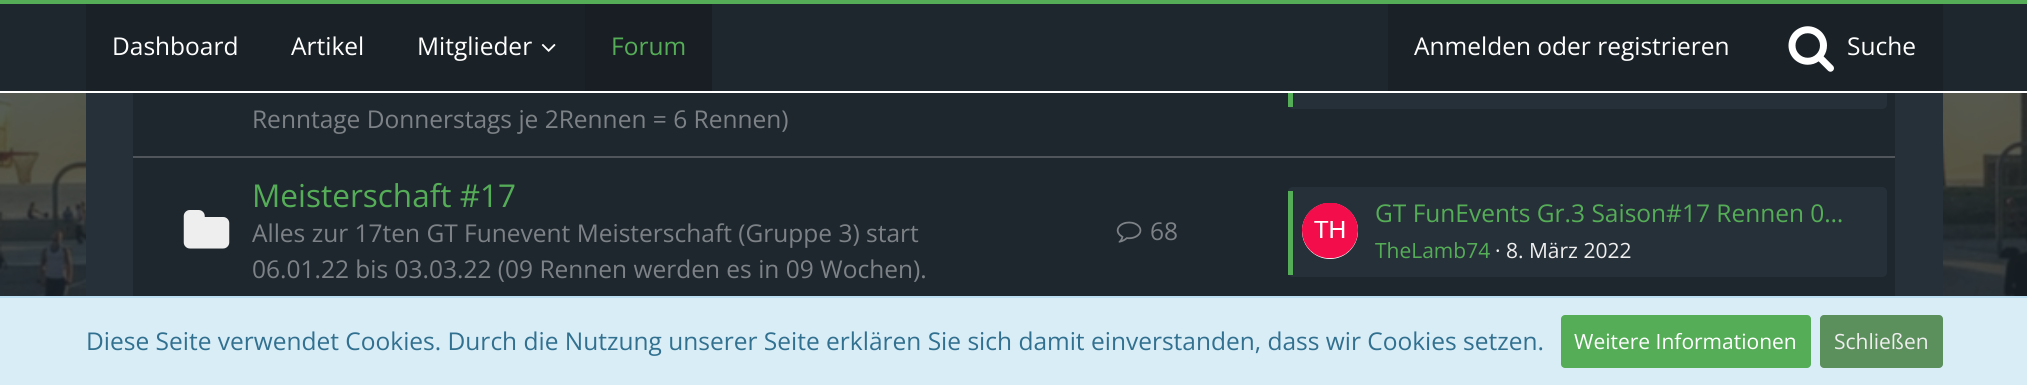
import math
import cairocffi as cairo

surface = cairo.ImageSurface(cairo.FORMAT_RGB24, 2027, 385)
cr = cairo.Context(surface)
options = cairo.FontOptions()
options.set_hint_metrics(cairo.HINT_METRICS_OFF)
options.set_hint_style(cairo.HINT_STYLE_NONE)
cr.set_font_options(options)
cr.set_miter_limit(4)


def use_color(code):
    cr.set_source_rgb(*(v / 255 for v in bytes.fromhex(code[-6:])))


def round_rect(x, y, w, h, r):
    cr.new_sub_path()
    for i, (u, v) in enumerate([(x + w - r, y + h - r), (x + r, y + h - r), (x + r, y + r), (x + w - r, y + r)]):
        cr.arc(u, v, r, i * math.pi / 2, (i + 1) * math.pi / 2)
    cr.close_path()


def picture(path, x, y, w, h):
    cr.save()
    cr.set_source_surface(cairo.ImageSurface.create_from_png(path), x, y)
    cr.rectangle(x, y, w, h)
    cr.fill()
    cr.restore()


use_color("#ffffff")
cr.paint()
picture("img1.png", 0, 93, 2027, 203)
use_color("#263038")
cr.rectangle(86, 93, 1857, 203)
cr.fill()
use_color("#1e272e")
cr.rectangle(133, 93, 1762, 63)
cr.fill()
use_color("#263038")
round_rect(1288, 19, 599, 90, 5)
cr.fill()
use_color("#1e272e")
cr.rectangle(0, 4, 2027, 87)
cr.fill()
use_color("#55ad57")
cr.rectangle(0, 0, 2027, 4)
cr.fill()
use_color("#ffffff")
cr.rectangle(1288, 91, 599, 2)
cr.fill()
use_color("#1a2127")
cr.rectangle(86, 4, 499, 87)
cr.fill()
cr.select_font_face("Open Sans")
cr.set_font_size(24.5)
use_color("#ffffff")
cr.move_to(112, 55)
cr.show_text("Dashboard")
cr.move_to(291, 55)
cr.show_text("Artikel")
cr.move_to(417, 55)
cr.show_text("Mitglieder")
picture("img2.png", 541, 44, 15, 8)
use_color("#181e23")
cr.rectangle(585, 4, 127, 87)
cr.fill()
use_color("#55ad57")
cr.move_to(611, 55)
cr.show_text("Forum")
use_color("#1a2127")
cr.rectangle(1388, 4, 555, 87)
cr.fill()
use_color("#ffffff")
cr.move_to(1414, 55)
cr.show_text("Anmelden oder registrieren")
picture("img3.png", 1788, 26, 46, 46)
cr.move_to(1847, 55)
cr.show_text("Suche")
use_color("#4f555b")
cr.rectangle(133, 156, 1762, 2)
cr.fill()
use_color("#55ad57")
cr.rectangle(1288, 93, 5, 14)
cr.fill()
use_color("#7d8287")
cr.move_to(252, 128)
cr.show_text("Renntage Donnerstags je 2Rennen = 6 Rennen)")
use_color("#1e272e")
cr.rectangle(133, 158, 1762, 138)
cr.fill()
picture("img4.png", 183, 210, 47, 39)
cr.set_font_size(31.5)
use_color("#55ad57")
cr.move_to(252, 207)
cr.show_text("Meisterschaft #17")
cr.set_font_size(24.5)
use_color("#7d8287")
cr.move_to(252, 242)
cr.show_text("Alles zur 17ten GT Funevent Meisterschaft (Gruppe 3) start")
cr.move_to(252, 278)
cr.show_text("06.01.22 bis 03.03.22 (09 Rennen werden es in 09 Wochen).")
picture("img5.png", 1116, 221, 26, 22)
cr.move_to(1150, 240)
cr.show_text("68")
use_color("#263038")
round_rect(1288, 187, 599, 90, 5)
cr.fill()
use_color("#55ad57")
cr.rectangle(1288, 191, 5, 84)
cr.fill()
use_color("#ffffff")
cr.arc(1330, 231, 28, 0, 2 * math.pi)
cr.fill()
picture("img6.png", 1302, 203, 56, 56)
use_color("#55ad57")
cr.move_to(1375, 222)
cr.show_text("GT FunEvents Gr.3 Saison#17 Rennen 0…")
cr.set_font_size(21)
cr.move_to(1375, 258)
cr.show_text("TheLamb74")
use_color("#eeeeee")
cr.move_to(1495, 258)
cr.show_text("· 8. März 2022")
use_color("#d9edf7")
cr.rectangle(0, 298, 2027, 87)
cr.fill()
use_color("#bcdff1")
cr.rectangle(0, 296, 2027, 2)
cr.fill()
cr.set_font_size(24.5)
use_color("#31708f")
cr.move_to(86, 350)
cr.show_text("Diese Seite verwendet Cookies. Durch die Nutzung unserer Seite erklären Sie sich damit einverstanden, dass wir Cookies setzen.")
use_color("#55ad57")
round_rect(1561, 315, 250, 53, 4)
cr.fill()
cr.set_font_size(21)
use_color("#ffffff")
cr.move_to(1574, 349)
cr.show_text("Weitere Informationen")
use_color("#5b8f5c")
round_rect(1820, 315, 123, 53, 4)
cr.fill()
use_color("#eeeeee")
cr.move_to(1834, 349)
cr.show_text("Schließen")
surface.write_to_png("result.png")
